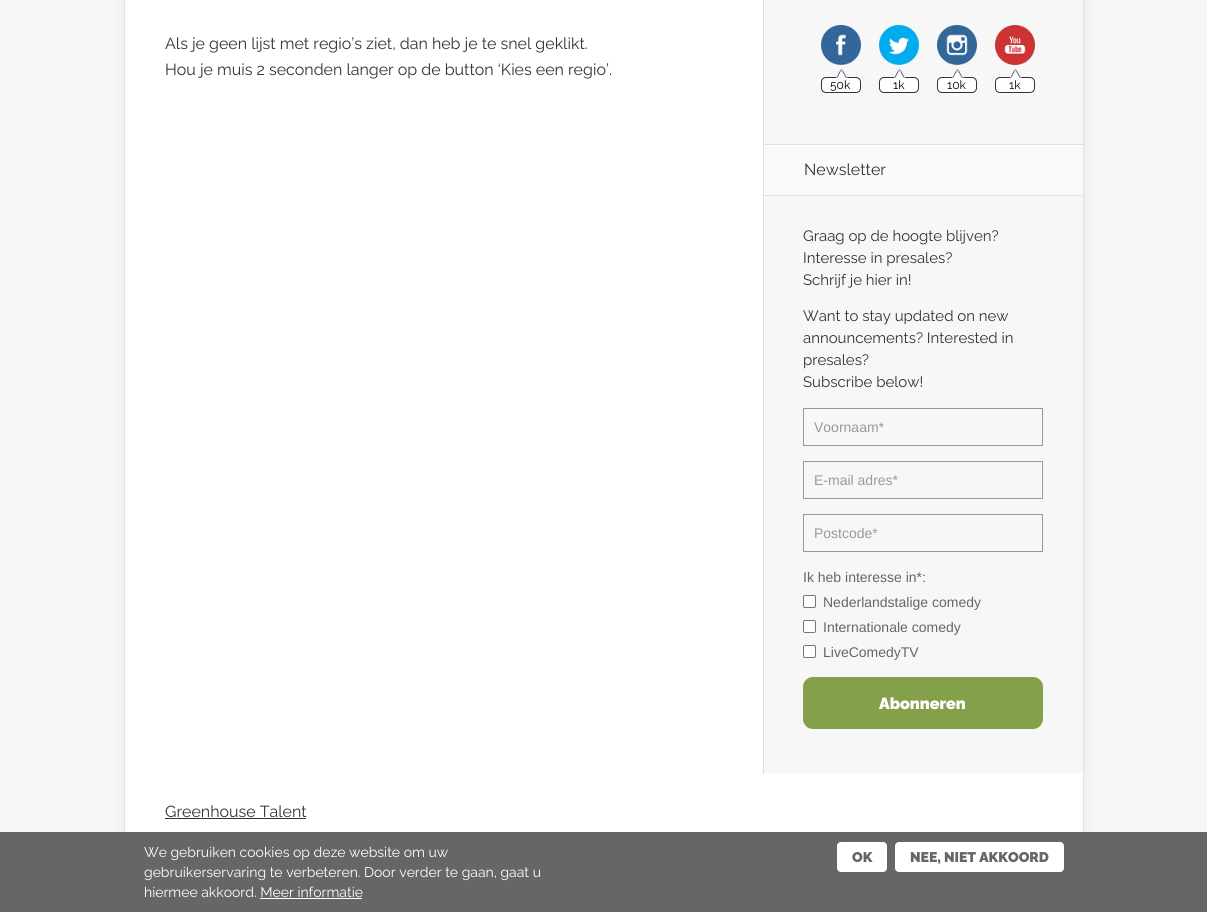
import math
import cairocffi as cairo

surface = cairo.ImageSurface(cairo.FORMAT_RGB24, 1207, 912)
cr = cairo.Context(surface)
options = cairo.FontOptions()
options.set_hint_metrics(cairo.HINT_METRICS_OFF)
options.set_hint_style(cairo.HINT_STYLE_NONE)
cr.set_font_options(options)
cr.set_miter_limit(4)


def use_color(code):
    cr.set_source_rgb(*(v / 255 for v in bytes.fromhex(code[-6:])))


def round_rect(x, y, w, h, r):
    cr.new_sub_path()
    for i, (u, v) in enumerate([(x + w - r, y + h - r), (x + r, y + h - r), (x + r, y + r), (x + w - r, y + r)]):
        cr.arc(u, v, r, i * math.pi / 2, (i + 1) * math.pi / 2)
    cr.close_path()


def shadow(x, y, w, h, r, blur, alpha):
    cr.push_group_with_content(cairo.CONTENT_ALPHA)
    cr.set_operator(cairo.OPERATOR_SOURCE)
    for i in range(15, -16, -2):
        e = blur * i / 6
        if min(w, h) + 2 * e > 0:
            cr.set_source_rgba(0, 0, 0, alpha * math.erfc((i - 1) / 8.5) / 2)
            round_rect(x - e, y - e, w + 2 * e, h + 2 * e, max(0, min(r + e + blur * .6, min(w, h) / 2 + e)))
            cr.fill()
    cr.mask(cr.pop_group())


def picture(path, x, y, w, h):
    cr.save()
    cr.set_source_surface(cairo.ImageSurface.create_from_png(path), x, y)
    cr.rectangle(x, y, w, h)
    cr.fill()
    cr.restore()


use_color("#f7f7f7")
cr.paint()
use_color("#000000")
shadow(124, -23, 960, 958, 0, 7.5, 0.07)
use_color("#ffffff")
cr.rectangle(125, 0, 638, 774)
cr.fill()
use_color("#e0e0e0")
cr.rectangle(763, 0, 1, 774)
cr.fill()
cr.select_font_face("Raleway")
cr.set_font_size(16)
use_color("#333333")
cr.move_to(165, 49)
cr.show_text("Als je geen lijst met regio’s ziet, dan heb je te snel geklikt.")
cr.move_to(165, 75)
cr.show_text("Hou je muis 2 seconden langer op de button ‘Kies een regio’.")
use_color("#f7f7f7")
cr.rectangle(764, 0, 319, 774)
cr.fill()
picture("img1.png", 821, 25, 40, 40)
use_color("#ffffff")
round_rect(821.5, 77.5, 39, 15, 4.5)
cr.fill_preserve()
use_color("#333333")
cr.set_line_width(1)
cr.stroke()
picture("img2.png", 833, 69, 15, 9)
cr.set_font_size(12)
use_color("#000000")
cr.move_to(830, 89)
cr.show_text("50k")
picture("img3.png", 879, 25, 40, 40)
use_color("#ffffff")
round_rect(879.5, 77.5, 39, 15, 4.5)
cr.fill_preserve()
use_color("#333333")
cr.stroke()
picture("img2.png", 891, 69, 15, 9)
use_color("#000000")
cr.move_to(893, 89)
cr.show_text("1k")
picture("img4.png", 937, 25, 40, 40)
use_color("#ffffff")
round_rect(937.5, 77.5, 39, 15, 4.5)
cr.fill_preserve()
use_color("#333333")
cr.stroke()
picture("img2.png", 949, 69, 15, 9)
use_color("#000000")
cr.move_to(947, 89)
cr.show_text("10k")
picture("img5.png", 995, 25, 40, 40)
use_color("#ffffff")
round_rect(995.5, 77.5, 39, 15, 4.5)
cr.fill_preserve()
use_color("#333333")
cr.stroke()
picture("img2.png", 1007, 69, 15, 9)
use_color("#000000")
cr.move_to(1009, 89)
cr.show_text("1k")
use_color("#fafafa")
cr.rectangle(765, 146, 318, 49)
cr.fill()
cr.save()
cr.rectangle(764, 145, 319, 50)
cr.clip()
use_color("#ffffff")
cr.set_fill_rule(cairo.FILL_RULE_EVEN_ODD)
cr.new_path()
cr.move_to(665, 46)
cr.line_to(1182, 46)
cr.line_to(1182, 294)
cr.line_to(665, 294)
cr.close_path()
cr.move_to(765, 146)
cr.line_to(1084, 146)
cr.line_to(1084, 196)
cr.line_to(765, 196)
cr.close_path()
cr.fill()
cr.restore()
use_color("#e0e0e0")
cr.rectangle(763, 144, 320, 1)
cr.fill()
cr.rectangle(763, 195, 320, 1)
cr.fill()
cr.set_font_size(16)
use_color("#333333")
cr.move_to(804, 175)
cr.show_text("Newsletter")
cr.set_font_size(15)
cr.move_to(803, 241)
cr.show_text("Graag op de hoogte blijven?")
cr.move_to(803, 263)
cr.show_text("Interesse in presales?")
cr.move_to(803, 285)
cr.show_text("Schrijf je hier in!")
cr.move_to(803, 321)
cr.show_text("Want to stay updated on new")
cr.move_to(803, 343)
cr.show_text("announcements? Interested in")
cr.move_to(803, 365)
cr.show_text("presales?")
cr.move_to(803, 387)
cr.show_text("Subscribe below!")
cr.rectangle(803.5, 408.5, 239, 37)
use_color("#999999")
cr.stroke()
cr.select_font_face("Liberation Sans")
cr.set_font_size(14)
cr.move_to(814, 432)
cr.show_text("Voornaam*")
cr.rectangle(803.5, 461.5, 239, 37)
cr.stroke()
cr.move_to(814, 485)
cr.show_text("E-mail adres*")
cr.rectangle(803.5, 514.5, 239, 37)
cr.stroke()
cr.move_to(814, 538)
cr.show_text("Postcode*")
use_color("#666666")
cr.move_to(803, 582)
cr.show_text("Ik heb interesse in*:")
use_color("#ffffff")
round_rect(803.5, 595.5, 12, 12, 1.5)
cr.fill_preserve()
use_color("#767676")
cr.stroke()
use_color("#666666")
cr.move_to(823, 607)
cr.show_text("Nederlandstalige comedy")
use_color("#ffffff")
round_rect(803.5, 620.5, 12, 12, 1.5)
cr.fill_preserve()
use_color("#767676")
cr.stroke()
use_color("#666666")
cr.move_to(823, 632)
cr.show_text("Internationale comedy")
use_color("#ffffff")
round_rect(803.5, 645.5, 12, 12, 1.5)
cr.fill_preserve()
use_color("#767676")
cr.stroke()
use_color("#666666")
cr.move_to(823, 657)
cr.show_text("LiveComedyTV")
use_color("#84a04a")
round_rect(803, 677, 240, 52, 10)
cr.fill()
cr.select_font_face("Raleway Black")
cr.set_font_size(16)
use_color("#ffffff")
cr.move_to(879, 709)
cr.show_text("Abonneren")
cr.rectangle(125, 774, 958, 58)
cr.fill()
use_color("#e0e0e0")
cr.rectangle(1083, 0, 1, 832)
cr.fill()
cr.rectangle(124, 0, 1, 832)
cr.fill()
cr.select_font_face("Raleway")
use_color("#333333")
cr.move_to(165, 817)
cr.show_text("Greenhouse Talent")
cr.rectangle(165, 818, 141, 1)
cr.fill()
use_color("#666666")
cr.rectangle(0, 832, 1207, 80)
cr.fill()
cr.set_font_size(14)
use_color("#ffffff")
cr.move_to(144, 857)
cr.show_text("We gebruiken cookies op deze website om uw")
cr.move_to(144, 877)
cr.show_text("gebruikerservaring te verbeteren. Door verder te gaan, gaat u")
cr.move_to(144, 897)
cr.show_text("hiermee akkoord. Meer informatie")
cr.rectangle(260, 898, 102, 1)
cr.fill()
round_rect(837, 842, 50, 30, 4)
cr.fill()
cr.select_font_face("Raleway Black")
use_color("#666666")
cr.move_to(852, 862)
cr.show_text("OK")
use_color("#ffffff")
round_rect(895, 842, 169, 30, 4)
cr.fill()
use_color("#666666")
cr.move_to(910, 862)
cr.show_text("NEE, NIET AKKOORD")
surface.write_to_png("result.png")
